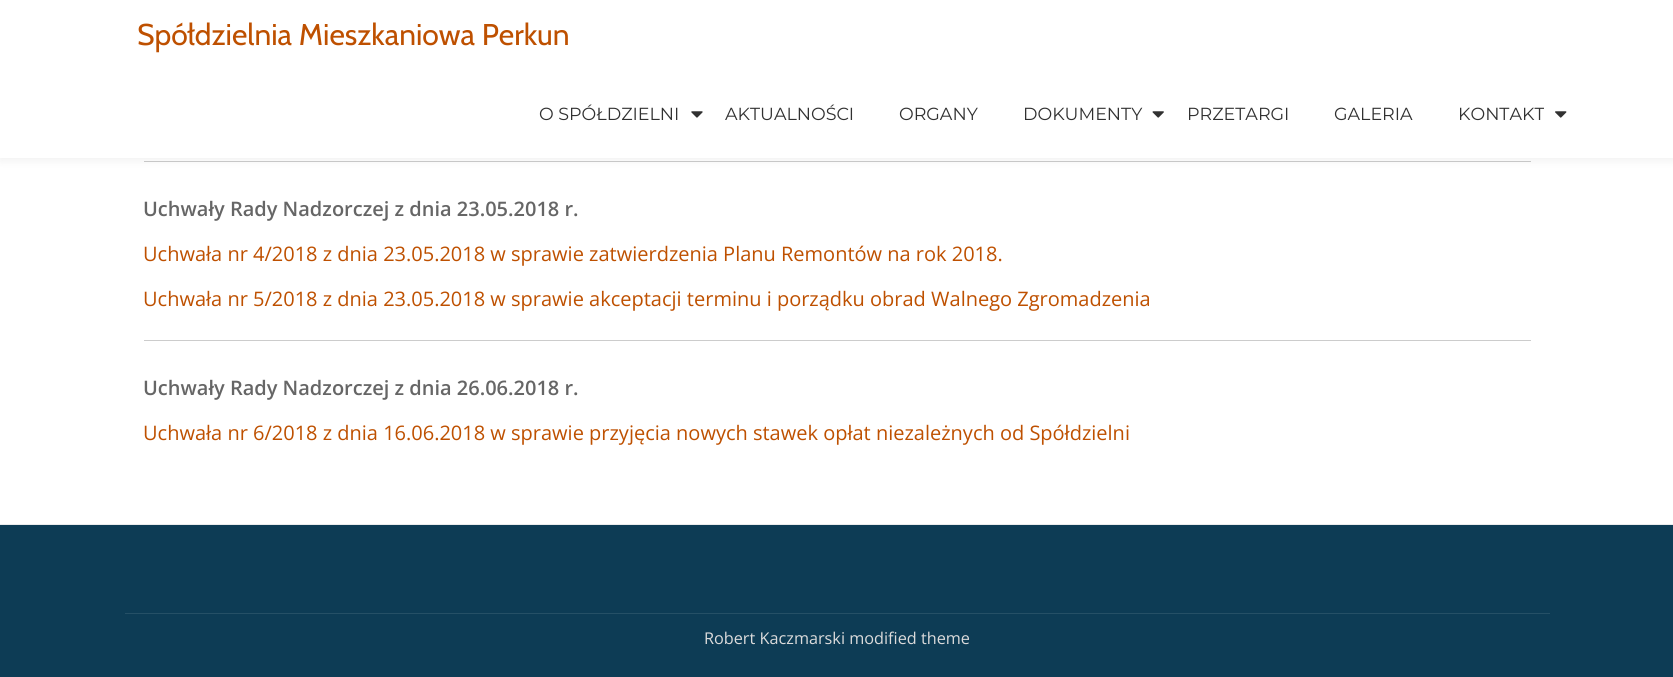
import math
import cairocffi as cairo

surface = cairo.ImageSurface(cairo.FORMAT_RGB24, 1673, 677)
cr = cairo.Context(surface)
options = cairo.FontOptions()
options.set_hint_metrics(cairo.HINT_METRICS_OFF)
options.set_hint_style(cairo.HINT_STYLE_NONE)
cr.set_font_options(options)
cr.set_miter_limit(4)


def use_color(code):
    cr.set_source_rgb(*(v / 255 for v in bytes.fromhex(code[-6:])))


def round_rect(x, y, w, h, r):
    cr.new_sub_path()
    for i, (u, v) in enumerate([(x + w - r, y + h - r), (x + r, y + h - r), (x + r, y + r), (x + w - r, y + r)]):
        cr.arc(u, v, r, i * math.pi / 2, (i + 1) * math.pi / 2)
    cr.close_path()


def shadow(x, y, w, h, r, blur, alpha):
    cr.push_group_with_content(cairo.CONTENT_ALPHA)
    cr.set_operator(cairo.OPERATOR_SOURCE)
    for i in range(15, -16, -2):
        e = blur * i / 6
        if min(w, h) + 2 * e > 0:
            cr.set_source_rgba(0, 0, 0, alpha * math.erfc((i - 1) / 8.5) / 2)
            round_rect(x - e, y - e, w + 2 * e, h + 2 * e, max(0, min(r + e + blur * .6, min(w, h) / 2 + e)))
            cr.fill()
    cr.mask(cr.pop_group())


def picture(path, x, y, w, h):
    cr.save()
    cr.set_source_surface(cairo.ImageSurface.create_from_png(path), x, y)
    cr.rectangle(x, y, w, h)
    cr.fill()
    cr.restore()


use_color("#ffffff")
cr.paint()
use_color("#cccccc")
cr.rectangle(144, 161, 1387, 1)
cr.fill()
use_color("#323232")
shadow(0, 3, 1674, 157, 0, 5, 0.08)
use_color("#ffffff")
cr.rectangle(0, 0, 1673, 158)
cr.fill()
cr.select_font_face("Cabin")
cr.set_font_size(30)
use_color("#be5000")
cr.move_to(137, 45)
cr.show_text("Spółdzielnia Mieszkaniowa Perkun")
cr.select_font_face("Montserrat")
cr.set_font_size(17.5)
use_color("#313131")
cr.move_to(539, 120)
cr.show_text("O SPÓŁDZIELNI")
picture("img1.png", 691, 111, 12, 7)
cr.move_to(725, 120)
cr.show_text("AKTUALNOŚCI")
cr.move_to(899, 120)
cr.show_text("ORGANY")
cr.move_to(1023, 120)
cr.show_text("DOKUMENTY")
picture("img2.png", 1152, 111, 12, 7)
cr.move_to(1187, 120)
cr.show_text("PRZETARGI")
cr.move_to(1334, 120)
cr.show_text("GALERIA")
cr.move_to(1458, 120)
cr.show_text("KONTAKT")
picture("img3.png", 1555, 111, 12, 7)
cr.select_font_face("Open Sans SemiBold")
cr.set_font_size(20)
use_color("#666666")
cr.move_to(143, 216)
cr.show_text("Uchwały Rady Nadzorczej z dnia 23.05.2018 r.")
cr.select_font_face("Open Sans")
use_color("#be5000")
cr.move_to(143, 261)
cr.show_text("Uchwała nr 4/2018 z dnia 23.05.2018 w sprawie zatwierdzenia Planu Remontów na rok 2018.")
cr.move_to(143, 306)
cr.show_text("Uchwała nr 5/2018 z dnia 23.05.2018 w sprawie akceptacji terminu i porządku obrad Walnego Zgromadzenia")
use_color("#cccccc")
cr.rectangle(144, 340, 1387, 1)
cr.fill()
cr.select_font_face("Open Sans SemiBold")
use_color("#666666")
cr.move_to(143, 395)
cr.show_text("Uchwały Rady Nadzorczej z dnia 26.06.2018 r.")
cr.select_font_face("Open Sans")
use_color("#be5000")
cr.move_to(143, 440)
cr.show_text("Uchwała nr 6/2018 z dnia 16.06.2018 w sprawie przyjęcia nowych stawek opłat niezależnych od Spółdzielni")
use_color("#0d3c55")
cr.rectangle(0, 525, 1673, 152)
cr.fill()
use_color("#eaebec")
cr.rectangle(0, 524, 1673, 1)
cr.fill()
use_color("#255066")
cr.rectangle(125, 613, 1425, 1)
cr.fill()
cr.set_font_size(16.25)
use_color("#dbdbdb")
cr.move_to(704, 644)
cr.show_text("Robert Kaczmarski modified theme")
surface.write_to_png("result.png")
